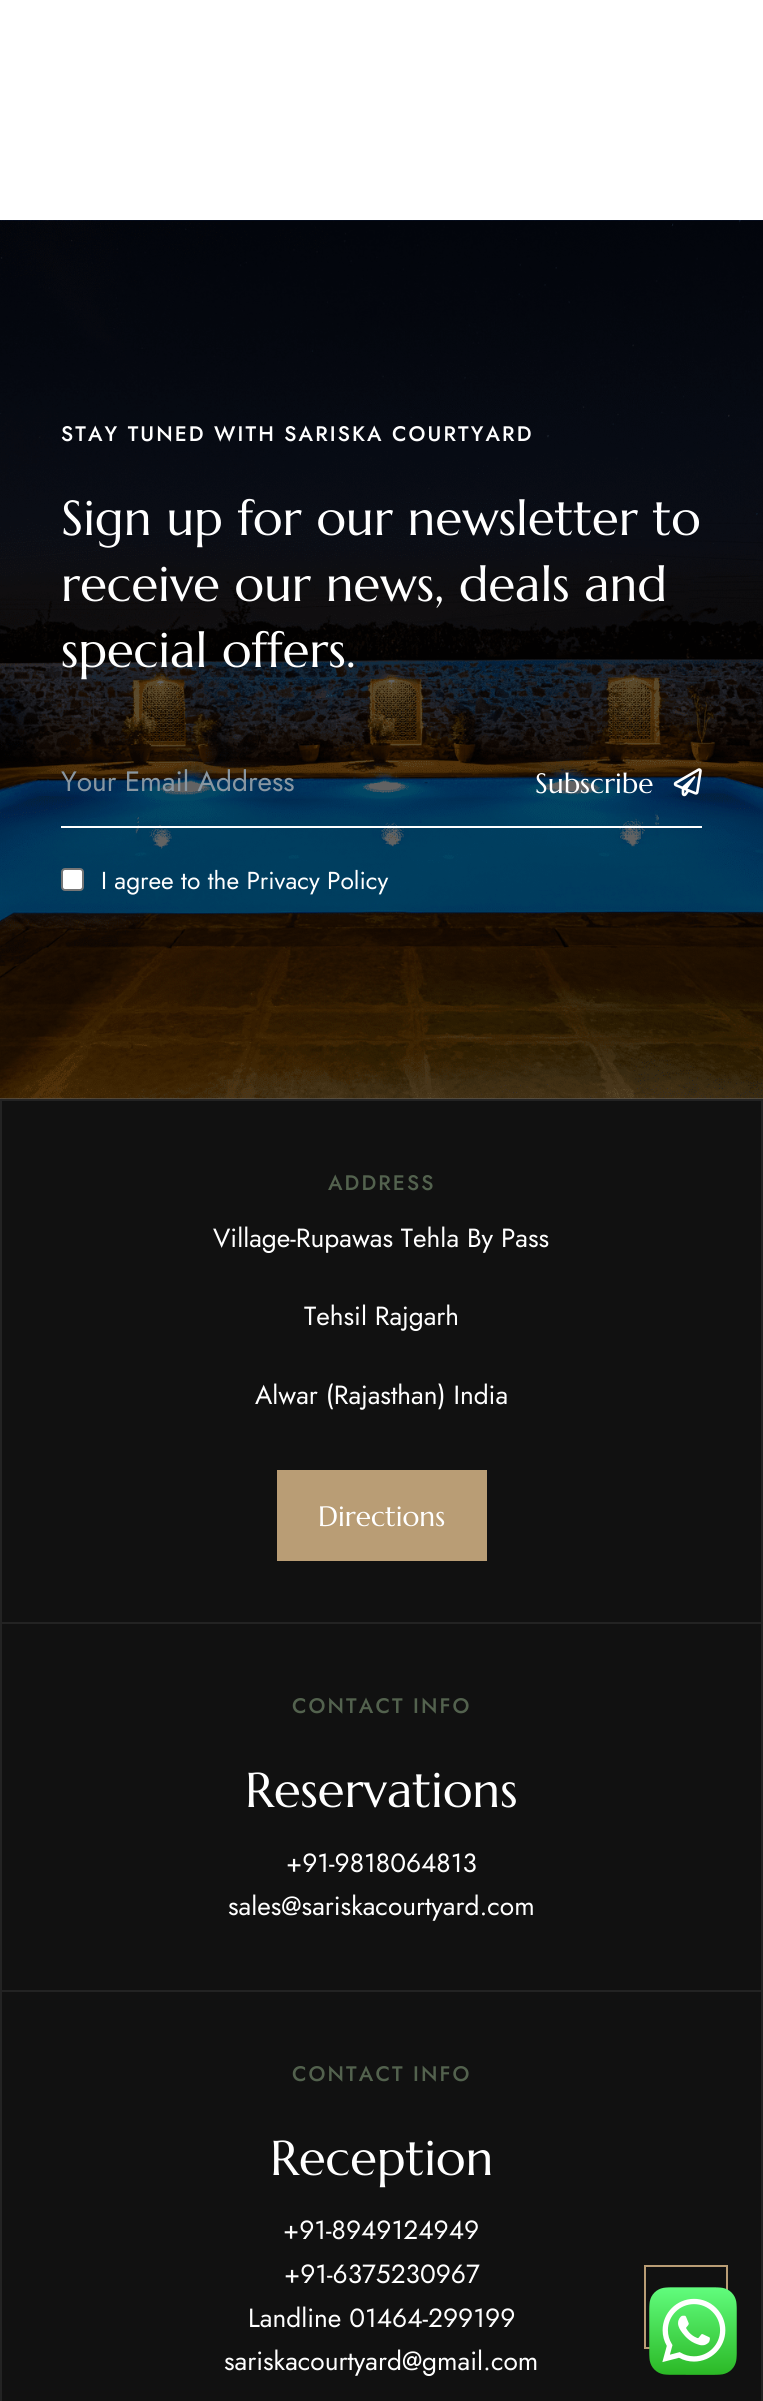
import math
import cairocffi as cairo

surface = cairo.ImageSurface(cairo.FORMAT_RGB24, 763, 2401)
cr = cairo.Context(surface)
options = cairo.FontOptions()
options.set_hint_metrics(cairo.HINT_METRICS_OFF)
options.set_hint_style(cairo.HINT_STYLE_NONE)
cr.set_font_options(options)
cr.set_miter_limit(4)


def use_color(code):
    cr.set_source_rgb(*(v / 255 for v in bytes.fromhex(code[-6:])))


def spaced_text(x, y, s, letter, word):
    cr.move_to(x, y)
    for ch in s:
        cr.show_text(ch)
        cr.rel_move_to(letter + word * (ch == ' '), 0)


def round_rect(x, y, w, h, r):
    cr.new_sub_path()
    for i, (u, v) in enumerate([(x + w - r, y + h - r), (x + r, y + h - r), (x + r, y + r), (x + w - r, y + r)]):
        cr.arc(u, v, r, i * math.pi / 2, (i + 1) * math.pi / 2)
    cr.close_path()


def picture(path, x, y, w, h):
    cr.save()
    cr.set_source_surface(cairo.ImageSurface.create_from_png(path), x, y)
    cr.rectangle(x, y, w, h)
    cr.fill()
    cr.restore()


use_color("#ffffff")
cr.paint()
use_color("#666666")
cr.rectangle(0, 1098, 763, 1)
cr.fill()
picture("img1.png", 0, 220, 763, 879)
cr.select_font_face("Jost Medium")
cr.set_font_size(21)
use_color("#ffffff")
spaced_text(61, 441, "STAY TUNED WITH SARISKA COURTYARD", 2.1, 0)
cr.select_font_face("Marcellus")
cr.set_font_size(49)
cr.move_to(61, 535)
cr.show_text("Sign up for our newsletter to")
cr.move_to(61, 601)
cr.show_text("receive our news, deals and")
cr.move_to(61, 667)
cr.show_text("special offers.")
cr.rectangle(61, 826, 641, 2)
cr.fill()
cr.select_font_face("Jost")
cr.set_font_size(28)
use_color("#8997a2")
cr.move_to(61, 791)
cr.show_text("Your Email Address")
cr.select_font_face("Marcellus")
use_color("#ffffff")
cr.move_to(535, 793)
cr.show_text("Subscribe")
picture("img2.png", 673, 768, 29, 29)
round_rect(62, 869, 21, 21, 3)
cr.fill_preserve()
use_color("#767676")
cr.stroke()
cr.select_font_face("Jost")
cr.set_font_size(24.5)
use_color("#ffffff")
cr.move_to(101, 889)
cr.show_text("I agree to the Privacy Policy")
use_color("#111111")
cr.rectangle(2, 1101, 759, 1300)
cr.fill()
cr.rectangle(1, 1100, 761, 523)
use_color("#232323")
cr.stroke()
cr.select_font_face("Jost Medium")
cr.set_font_size(21)
use_color("#53624e")
spaced_text(328, 1190, "ADDRESS", 2.1, 0)
cr.select_font_face("Jost")
cr.set_font_size(26.25)
use_color("#ffffff")
cr.move_to(213, 1247)
cr.show_text("Village-Rupawas Tehla By Pass")
cr.move_to(304, 1325)
cr.show_text("Tehsil Rajgarh")
cr.move_to(255, 1404)
cr.show_text("Alwar (Rajasthan) India")
use_color("#b99d75")
cr.rectangle(277, 1470, 210, 91)
cr.fill()
cr.select_font_face("Marcellus")
cr.set_font_size(28)
use_color("#ffffff")
cr.move_to(318, 1526)
cr.show_text("Directions")
use_color("#232323")
cr.rectangle(761, 1624, 2, 777)
cr.fill()
cr.rectangle(0, 1990, 763, 2)
cr.fill()
cr.rectangle(0, 1624, 2, 777)
cr.fill()
cr.select_font_face("Jost Medium")
cr.set_font_size(21)
use_color("#53624e")
spaced_text(292, 1713, "CONTACT INFO", 2.1, 0)
cr.select_font_face("Marcellus")
cr.set_font_size(49)
use_color("#ffffff")
cr.move_to(245, 1807)
cr.show_text("Reservations")
cr.select_font_face("Jost")
cr.set_font_size(26.25)
cr.move_to(286, 1872)
cr.show_text("+91-9818064813")
cr.move_to(228, 1915)
cr.show_text("sales@sariskacourtyard.com")
cr.select_font_face("Jost Medium")
cr.set_font_size(21)
use_color("#53624e")
spaced_text(292, 2081, "CONTACT INFO", 2.1, 0)
cr.select_font_face("Marcellus")
cr.set_font_size(49)
use_color("#ffffff")
cr.move_to(270, 2175)
cr.show_text("Reception")
cr.select_font_face("Jost")
cr.set_font_size(26.25)
cr.move_to(283, 2239)
cr.show_text("+91-8949124949")
cr.move_to(284, 2283)
cr.show_text("+91-6375230967")
cr.move_to(248, 2327)
cr.show_text("Landline 01464-299199")
cr.move_to(224, 2370)
cr.show_text("sariskacourtyard@gmail.com")
cr.rectangle(645, 2266, 82, 82)
use_color("#b99d75")
cr.stroke()
picture("img3.png", 649, 2287, 88, 88)
surface.write_to_png("result.png")
